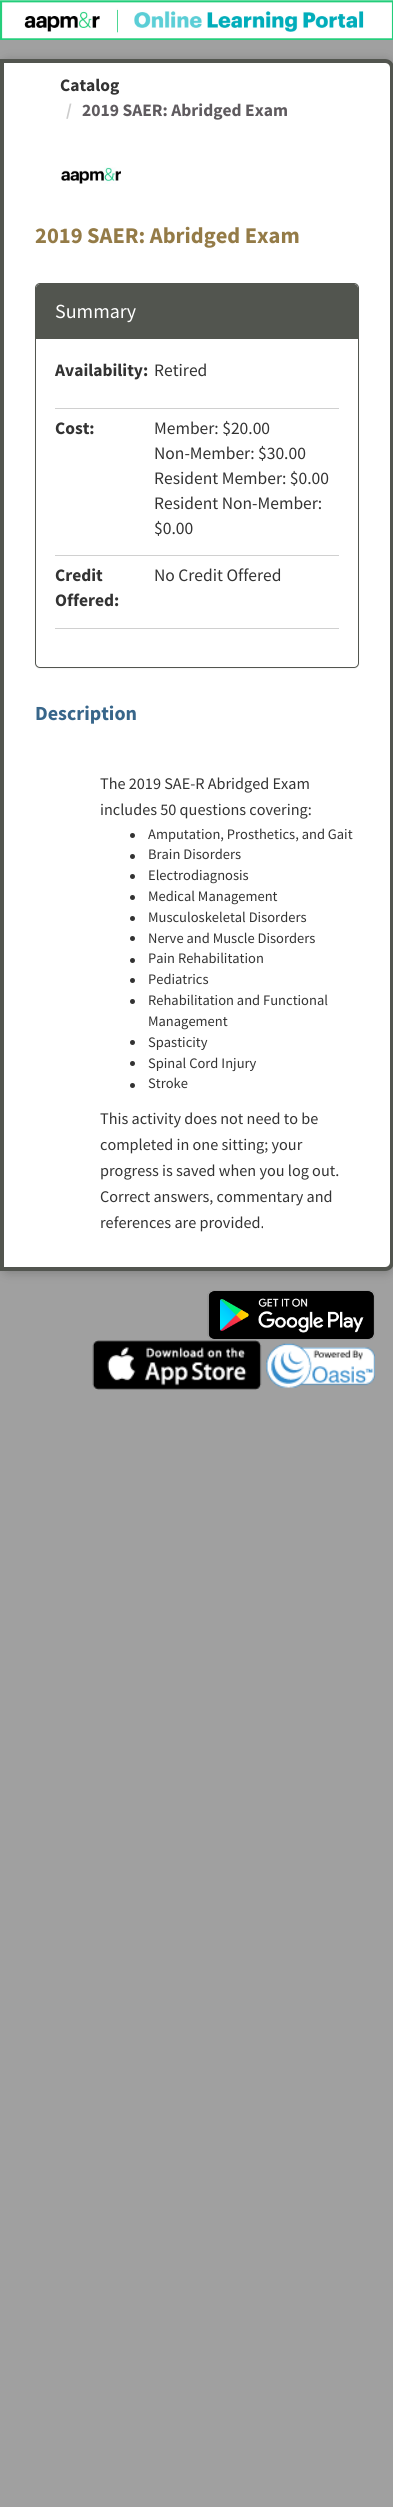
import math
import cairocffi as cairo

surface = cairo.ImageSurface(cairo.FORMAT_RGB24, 393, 2507)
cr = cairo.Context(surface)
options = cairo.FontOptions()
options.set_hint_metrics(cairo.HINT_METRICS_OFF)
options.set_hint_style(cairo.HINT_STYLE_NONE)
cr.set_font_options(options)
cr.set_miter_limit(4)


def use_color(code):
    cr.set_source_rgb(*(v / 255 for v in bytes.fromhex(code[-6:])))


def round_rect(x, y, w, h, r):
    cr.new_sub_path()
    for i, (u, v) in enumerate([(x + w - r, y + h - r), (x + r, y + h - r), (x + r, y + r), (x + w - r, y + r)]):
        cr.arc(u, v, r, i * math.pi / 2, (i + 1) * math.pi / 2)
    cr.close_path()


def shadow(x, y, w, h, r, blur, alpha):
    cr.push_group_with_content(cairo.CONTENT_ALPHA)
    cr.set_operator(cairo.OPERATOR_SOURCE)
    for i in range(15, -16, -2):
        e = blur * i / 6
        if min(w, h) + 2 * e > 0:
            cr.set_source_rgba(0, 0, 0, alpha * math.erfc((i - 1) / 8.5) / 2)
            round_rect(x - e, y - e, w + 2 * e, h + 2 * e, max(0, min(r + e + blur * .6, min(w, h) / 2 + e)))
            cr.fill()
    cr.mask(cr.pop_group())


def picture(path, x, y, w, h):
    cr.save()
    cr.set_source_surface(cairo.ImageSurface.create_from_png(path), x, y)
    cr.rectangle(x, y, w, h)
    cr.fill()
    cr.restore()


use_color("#a0a0a0")
cr.paint()
picture("img1.png", 0, 0, 393, 40)
use_color("#000000")
shadow(0, 60, 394, 1213, 9, 5, 0.2)
use_color("#ffffff")
cr.new_path()
cr.move_to(2, 61)
cr.line_to(385, 61)
cr.curve_to(389, 61, 392, 64, 392, 68)
cr.line_to(392, 1262)
cr.curve_to(392, 1266, 389, 1269, 385, 1269)
cr.line_to(2, 1269)
cr.close_path()
cr.fill_preserve()
use_color("#52554f")
cr.set_line_width(4)
cr.stroke()
cr.select_font_face("Source Sans Pro", cairo.FONT_SLANT_NORMAL, cairo.FONT_WEIGHT_BOLD)
cr.set_font_size(17.5)
use_color("#333333")
cr.move_to(60, 91)
cr.show_text("Catalog")
use_color("#cccccc")
cr.move_to(66, 116)
cr.show_text("/")
use_color("#5f5b5f")
cr.move_to(82, 116)
cr.show_text("2019 SAER: Abridged Exam")
picture("img2.png", 61, 167, 60, 17)
cr.set_font_size(22.5)
use_color("#947b47")
cr.move_to(35, 243)
cr.show_text("2019 SAER: Abridged Exam")
use_color("#000000")
shadow(35, 284, 324, 385, 5, 0.5, 0.05)
use_color("#ffffff")
round_rect(35.5, 283.5, 323, 384, 4.5)
cr.fill_preserve()
use_color("#52554f")
cr.set_line_width(1)
cr.stroke()
cr.new_path()
cr.move_to(40, 284)
cr.line_to(354, 284)
cr.curve_to(356, 284, 358, 286, 358, 288)
cr.line_to(358, 339)
cr.line_to(36, 339)
cr.line_to(36, 288)
cr.curve_to(36, 286, 38, 284, 40, 284)
cr.close_path()
cr.fill()
cr.select_font_face("Source Sans Pro")
cr.set_font_size(20)
use_color("#ffffff")
cr.move_to(55, 318)
cr.show_text("Summary")
cr.select_font_face("Source Sans Pro", cairo.FONT_SLANT_NORMAL, cairo.FONT_WEIGHT_BOLD)
cr.set_font_size(17.5)
use_color("#333333")
cr.move_to(55, 376)
cr.show_text("Availability:")
cr.select_font_face("Source Sans Pro")
cr.move_to(154, 376)
cr.show_text("Retired")
use_color("#d0d0d0")
cr.rectangle(55, 408, 284, 1)
cr.fill()
cr.select_font_face("Source Sans Pro", cairo.FONT_SLANT_NORMAL, cairo.FONT_WEIGHT_BOLD)
use_color("#333333")
cr.move_to(55, 434)
cr.show_text("Cost:")
cr.select_font_face("Source Sans Pro")
cr.move_to(154, 434)
cr.show_text("Member: $20.00")
cr.move_to(154, 459)
cr.show_text("Non-Member: $30.00")
cr.move_to(154, 484)
cr.show_text("Resident Member: $0.00")
cr.move_to(154, 509)
cr.show_text("Resident Non-Member:")
cr.move_to(154, 534)
cr.show_text("$0.00")
use_color("#d0d0d0")
cr.rectangle(55, 555, 284, 1)
cr.fill()
cr.select_font_face("Source Sans Pro", cairo.FONT_SLANT_NORMAL, cairo.FONT_WEIGHT_BOLD)
use_color("#333333")
cr.move_to(55, 581)
cr.show_text("Credit")
cr.move_to(55, 606)
cr.show_text("Offered:")
cr.select_font_face("Source Sans Pro")
cr.move_to(154, 581)
cr.show_text("No Credit Offered")
use_color("#d0d0d0")
cr.rectangle(55, 628, 284, 1)
cr.fill()
cr.select_font_face("Source Sans Pro", cairo.FONT_SLANT_NORMAL, cairo.FONT_WEIGHT_BOLD)
cr.set_font_size(20)
use_color("#38668a")
cr.move_to(35, 720)
cr.show_text("Description")
cr.select_font_face("Source Sans Pro")
cr.set_font_size(16.2)
use_color("#333333")
cr.move_to(100, 789)
cr.show_text("The 2019 SAE-R Abridged Exam")
cr.move_to(100, 815)
cr.show_text("includes 50 questions covering:")
cr.new_path()
cr.arc(132.5, 835.5, 2.5, 0, 2 * math.pi)
cr.fill()
cr.set_font_size(14.5)
cr.move_to(148, 839)
cr.show_text("Amputation, Prosthetics, and Gait")
cr.new_path()
cr.arc(132.5, 856.5, 2.5, 0, 2 * math.pi)
cr.fill()
cr.move_to(148, 859)
cr.show_text("Brain Disorders")
cr.new_path()
cr.arc(132.5, 876.5, 2.5, 0, 2 * math.pi)
cr.fill()
cr.move_to(148, 880)
cr.show_text("Electrodiagnosis")
cr.new_path()
cr.arc(132.5, 897.5, 2.5, 0, 2 * math.pi)
cr.fill()
cr.move_to(148, 901)
cr.show_text("Medical Management")
cr.new_path()
cr.arc(132.5, 918.5, 2.5, 0, 2 * math.pi)
cr.fill()
cr.move_to(148, 922)
cr.show_text("Musculoskeletal Disorders")
cr.new_path()
cr.arc(132.5, 938.5, 2.5, 0, 2 * math.pi)
cr.fill()
cr.move_to(148, 943)
cr.show_text("Nerve and Muscle Disorders")
cr.new_path()
cr.arc(132.5, 960.5, 2.5, 0, 2 * math.pi)
cr.fill()
cr.move_to(148, 963)
cr.show_text("Pain Rehabilitation")
cr.new_path()
cr.arc(132.5, 980.5, 2.5, 0, 2 * math.pi)
cr.fill()
cr.move_to(148, 984)
cr.show_text("Pediatrics")
cr.new_path()
cr.arc(132.5, 1001.5, 2.5, 0, 2 * math.pi)
cr.fill()
cr.move_to(148, 1005)
cr.show_text("Rehabilitation and Functional")
cr.move_to(148, 1026)
cr.show_text("Management")
cr.new_path()
cr.arc(132.5, 1042.5, 2.5, 0, 2 * math.pi)
cr.fill()
cr.move_to(148, 1047)
cr.show_text("Spasticity")
cr.new_path()
cr.arc(132.5, 1063.5, 2.5, 0, 2 * math.pi)
cr.fill()
cr.move_to(148, 1068)
cr.show_text("Spinal Cord Injury")
cr.new_path()
cr.arc(132.5, 1085.5, 2.5, 0, 2 * math.pi)
cr.fill()
cr.move_to(148, 1088)
cr.show_text("Stroke")
cr.set_font_size(16.2)
cr.move_to(100, 1124)
cr.show_text("This activity does not need to be")
cr.move_to(100, 1150)
cr.show_text("completed in one sitting; your")
cr.move_to(100, 1176)
cr.show_text("progress is saved when you log out.")
cr.move_to(100, 1202)
cr.show_text("Correct answers, commentary and")
cr.move_to(100, 1228)
cr.show_text("references are provided.")
picture("img3.png", 207, 1290, 168, 50)
picture("img4.png", 92, 1340, 170, 50)
picture("img5.png", 266, 1343, 109, 45)
surface.write_to_png("result.png")
